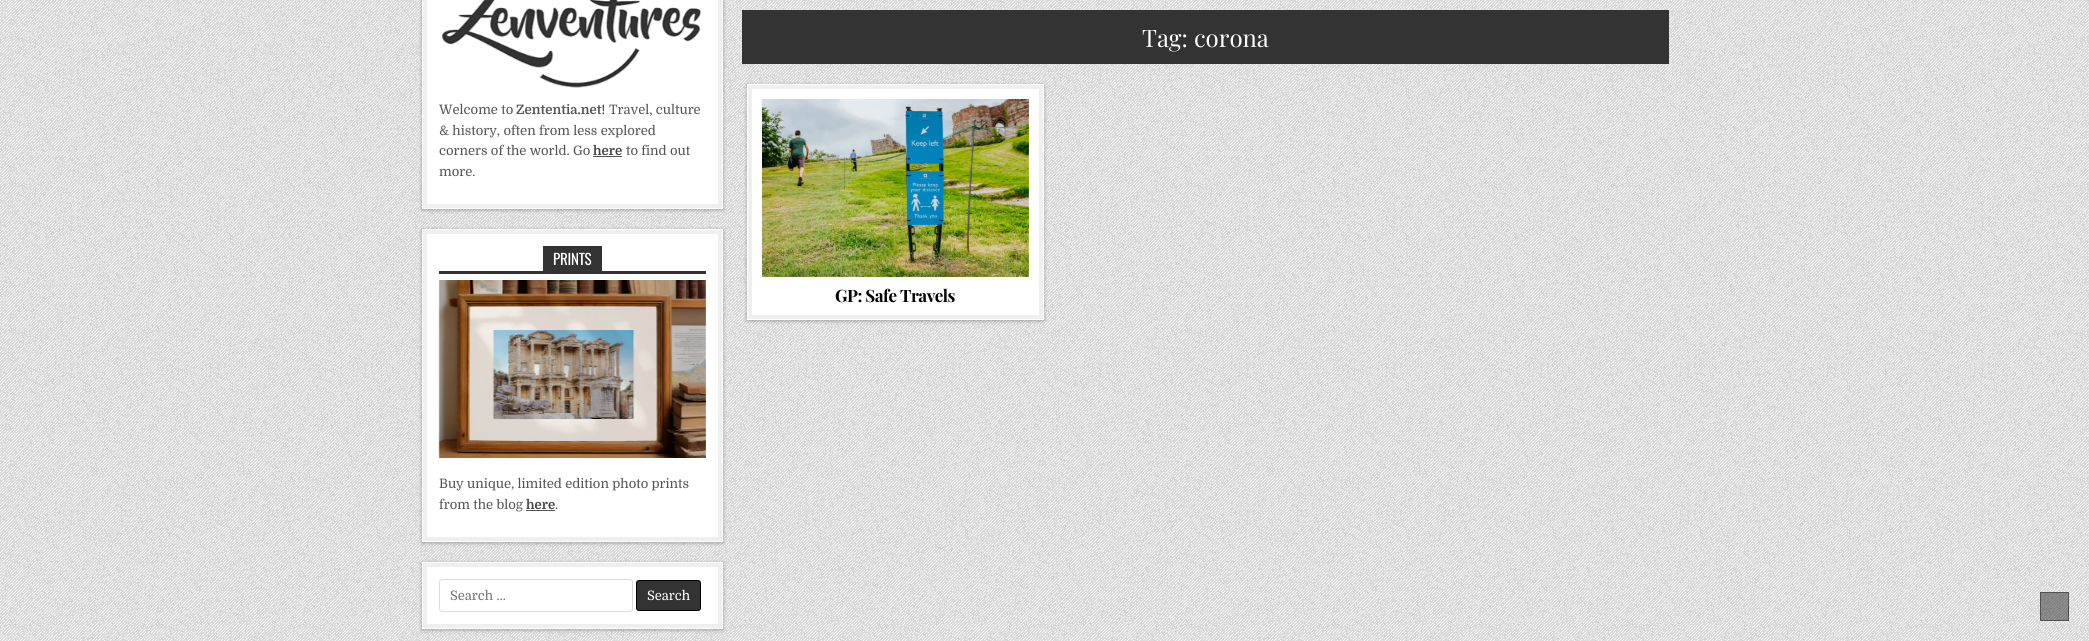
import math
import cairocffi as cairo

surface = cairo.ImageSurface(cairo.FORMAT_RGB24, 2089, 641)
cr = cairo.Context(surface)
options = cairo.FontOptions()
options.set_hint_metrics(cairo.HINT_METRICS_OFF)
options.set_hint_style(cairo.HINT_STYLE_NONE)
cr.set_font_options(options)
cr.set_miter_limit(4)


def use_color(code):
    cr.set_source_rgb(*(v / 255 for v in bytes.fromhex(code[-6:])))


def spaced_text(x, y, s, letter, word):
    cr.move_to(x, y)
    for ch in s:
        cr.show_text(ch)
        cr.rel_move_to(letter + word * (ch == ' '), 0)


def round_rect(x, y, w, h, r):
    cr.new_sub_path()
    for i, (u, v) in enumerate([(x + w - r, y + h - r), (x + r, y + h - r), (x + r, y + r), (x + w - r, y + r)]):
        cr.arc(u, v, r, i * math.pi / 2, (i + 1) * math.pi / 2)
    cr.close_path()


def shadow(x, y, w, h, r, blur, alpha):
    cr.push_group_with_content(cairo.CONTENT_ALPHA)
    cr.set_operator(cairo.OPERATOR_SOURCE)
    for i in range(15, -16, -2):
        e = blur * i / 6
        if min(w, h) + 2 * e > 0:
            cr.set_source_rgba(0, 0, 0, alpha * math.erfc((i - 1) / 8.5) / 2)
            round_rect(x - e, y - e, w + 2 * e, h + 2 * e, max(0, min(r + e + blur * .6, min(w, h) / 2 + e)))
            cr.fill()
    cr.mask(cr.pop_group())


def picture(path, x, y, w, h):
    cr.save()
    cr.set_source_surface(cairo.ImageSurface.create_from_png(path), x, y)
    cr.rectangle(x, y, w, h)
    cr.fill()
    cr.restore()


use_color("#ffffff")
cr.paint()
picture("img1.png", 0, 0, 2089, 641)
use_color("#000000")
shadow(422, -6, 301, 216, 0, 2, 0.3)
use_color("#ffffff")
cr.rectangle(422, 0, 301, 209)
cr.fill()
cr.rectangle(425, -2, 295, 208)
use_color("#efefef")
cr.set_line_width(4)
cr.stroke()
picture("img2.png", 442, 0, 259, 88)
cr.select_font_face("Domine")
cr.set_font_size(13)
use_color("#555555")
cr.move_to(439, 114)
cr.show_text("Welcome to")
cr.select_font_face("Domine", cairo.FONT_SLANT_NORMAL, cairo.FONT_WEIGHT_BOLD)
cr.move_to(516, 114)
cr.show_text("Zententia.net!")
cr.select_font_face("Domine")
cr.move_to(609, 114)
cr.show_text("Travel, culture")
cr.move_to(439, 135)
cr.show_text("& history, often from less explored")
cr.move_to(439, 155)
cr.show_text("corners of the world. Go")
cr.select_font_face("Domine", cairo.FONT_SLANT_NORMAL, cairo.FONT_WEIGHT_BOLD)
use_color("#444444")
cr.move_to(593, 155)
cr.show_text("here")
use_color("#555555")
cr.rectangle(593, 156, 29, 1)
cr.fill()
cr.select_font_face("Domine")
cr.move_to(626, 155)
cr.show_text("to find out")
cr.move_to(439, 176)
cr.show_text("more.")
use_color("#000000")
shadow(422, 230, 301, 313, 0, 2, 0.3)
use_color("#ffffff")
cr.rectangle(422, 229, 301, 313)
cr.fill()
cr.rectangle(425, 232, 295, 307)
use_color("#efefef")
cr.stroke()
use_color("#333333")
cr.rectangle(439, 271, 267, 3)
cr.fill()
cr.rectangle(543, 246, 59, 25)
cr.fill()
cr.select_font_face("Oswald")
cr.set_font_size(15)
use_color("#ffffff")
spaced_text(553, 265, "PRINTS", -0.25, 0)
picture("img3.png", 438, 280, 268, 178)
cr.select_font_face("Domine")
cr.set_font_size(13)
use_color("#555555")
cr.move_to(439, 488)
cr.show_text("Buy unique, limited edition photo prints")
cr.move_to(439, 509)
cr.show_text("from the blog")
cr.select_font_face("Domine", cairo.FONT_SLANT_NORMAL, cairo.FONT_WEIGHT_BOLD)
use_color("#444444")
cr.move_to(526, 509)
cr.show_text("here")
use_color("#555555")
cr.rectangle(526, 510, 29, 1)
cr.fill()
cr.select_font_face("Domine")
cr.move_to(555, 509)
cr.show_text(".")
use_color("#000000")
shadow(422, 563, 301, 67, 0, 2, 0.3)
use_color("#ffffff")
cr.rectangle(422, 562, 301, 67)
cr.fill()
cr.rectangle(425, 565, 295, 61)
use_color("#efefef")
cr.stroke()
round_rect(439.5, 579.5, 193, 32, 2.5)
use_color("#dddddd")
cr.set_line_width(1)
cr.stroke()
use_color("#757575")
cr.move_to(450, 600)
cr.show_text("Search …")
use_color("#333333")
round_rect(636.5, 580.5, 64, 30, 2.5)
cr.fill_preserve()
use_color("#000000")
cr.stroke()
use_color("#ffffff")
cr.move_to(647, 600)
cr.show_text("Search")
use_color("#333333")
cr.rectangle(742, 10, 927, 54)
cr.fill()
cr.select_font_face("Playfair Display")
cr.set_font_size(24)
use_color("#ffffff")
cr.move_to(1142, 47)
cr.show_text("Tag: corona")
use_color("#000000")
shadow(747, 85, 297, 236, 0, 2, 0.3)
use_color("#ffffff")
cr.rectangle(747, 84, 297, 236)
cr.fill()
cr.rectangle(750, 87, 291, 230)
use_color("#efefef")
cr.set_line_width(4)
cr.stroke()
picture("img4.png", 762, 99, 267, 178)
cr.select_font_face("Playfair Display", cairo.FONT_SLANT_NORMAL, cairo.FONT_WEIGHT_BOLD)
cr.set_font_size(17)
use_color("#000000")
spaced_text(835, 302, "GP: Safe Travels", -0.5, 0)
cr.set_source_rgba(0, 0, 0, 0.4)
cr.rectangle(2040, 592, 29, 29)
cr.fill()
cr.rectangle(2040.5, 592.5, 28, 28)
cr.set_line_width(1)
cr.stroke()
surface.write_to_png("result.png")
